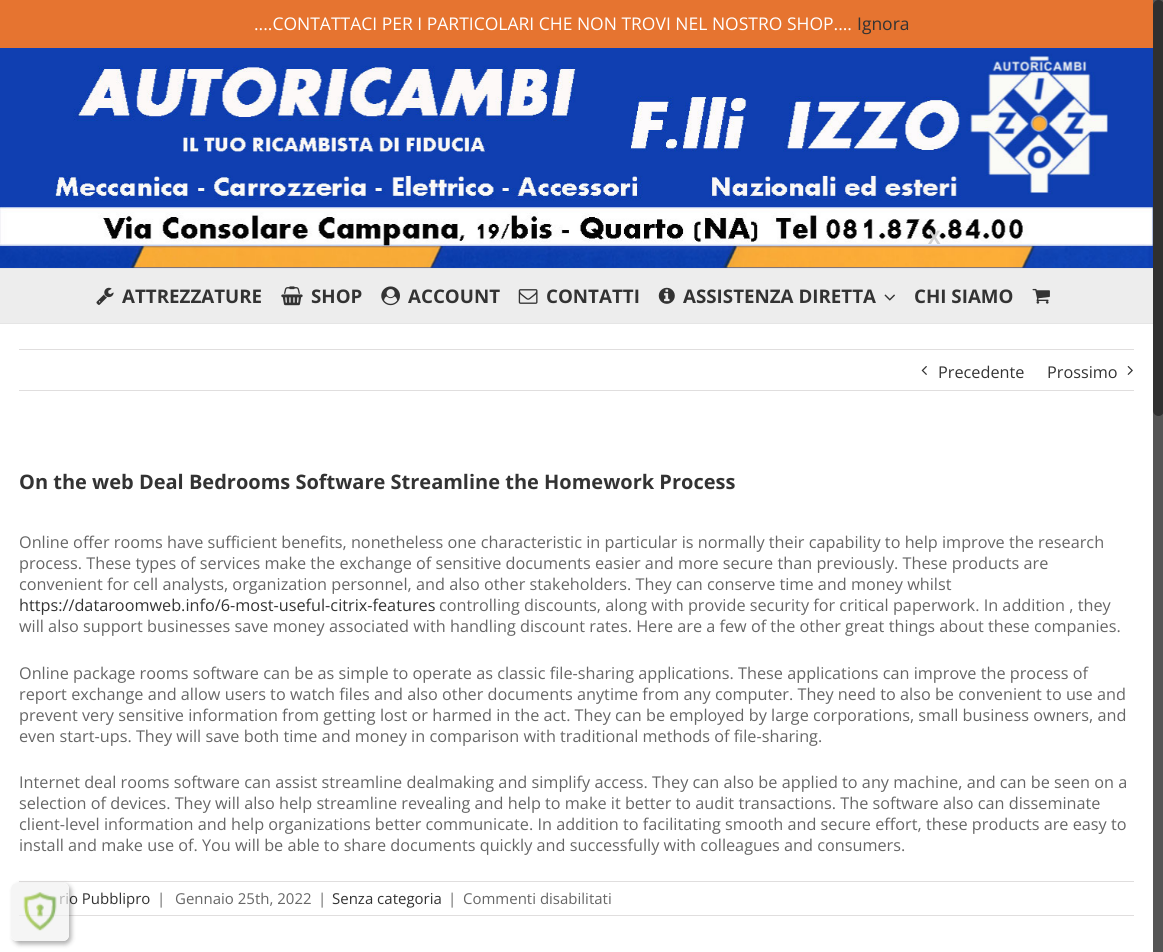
import math
import cairocffi as cairo

surface = cairo.ImageSurface(cairo.FORMAT_RGB24, 1163, 952)
cr = cairo.Context(surface)
options = cairo.FontOptions()
options.set_hint_metrics(cairo.HINT_METRICS_OFF)
options.set_hint_style(cairo.HINT_STYLE_NONE)
cr.set_font_options(options)
cr.set_miter_limit(4)


def use_color(code):
    cr.set_source_rgb(*(v / 255 for v in bytes.fromhex(code[-6:])))


def round_rect(x, y, w, h, r):
    cr.new_sub_path()
    for i, (u, v) in enumerate([(x + w - r, y + h - r), (x + r, y + h - r), (x + r, y + r), (x + w - r, y + r)]):
        cr.arc(u, v, r, i * math.pi / 2, (i + 1) * math.pi / 2)
    cr.close_path()


def shadow(x, y, w, h, r, blur, alpha):
    cr.push_group_with_content(cairo.CONTENT_ALPHA)
    cr.set_operator(cairo.OPERATOR_SOURCE)
    for i in range(15, -16, -2):
        e = blur * i / 6
        if min(w, h) + 2 * e > 0:
            cr.set_source_rgba(0, 0, 0, alpha * math.erfc((i - 1) / 8.5) / 2)
            round_rect(x - e, y - e, w + 2 * e, h + 2 * e, max(0, min(r + e + blur * .6, min(w, h) / 2 + e)))
            cr.fill()
    cr.mask(cr.pop_group())


def picture(path, x, y, w, h):
    cr.save()
    cr.set_source_surface(cairo.ImageSurface.create_from_png(path), x, y)
    cr.rectangle(x, y, w, h)
    cr.fill()
    cr.restore()


use_color("#ffffff")
cr.paint()
use_color("#e67430")
cr.rectangle(0, 0, 1153, 48)
cr.fill()
cr.select_font_face("Open Sans")
cr.set_font_size(17.5)
use_color("#ffffff")
cr.move_to(254, 30)
cr.show_text("....CONTATTACI PER I PARTICOLARI CHE NON TROVI NEL NOSTRO SHOP....")
use_color("#333333")
cr.move_to(857, 30)
cr.show_text("Ignora")
use_color("#555555")
cr.rectangle(1153, 0, 10, 952)
cr.fill()
use_color("#303030")
round_rect(1153, 0, 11, 416, 5.5)
cr.fill()
use_color("#103fb1")
cr.rectangle(0, 48, 1153, 220)
cr.fill()
picture("img1.png", 0, 48, 1153, 220)
cr.select_font_face("Open Sans", cairo.FONT_SLANT_NORMAL, cairo.FONT_WEIGHT_BOLD)
cr.set_font_size(18.75)
use_color("#d1d1d1")
cr.move_to(928, 244)
cr.show_text("X")
use_color("#e5e5e5")
cr.rectangle(0, 268, 1153, 1)
cr.fill()
use_color("#ededed")
cr.rectangle(0, 269, 1153, 54)
cr.fill()
use_color("#e5e5e5")
cr.rectangle(0, 323, 1153, 1)
cr.fill()
picture("img2.png", 96, 287, 18, 18)
use_color("#333333")
cr.move_to(122, 303)
cr.show_text("ATTREZZATURE")
picture("img3.png", 281, 286, 22, 20)
cr.move_to(311, 303)
cr.show_text("SHOP")
picture("img4.png", 381, 286, 19, 20)
cr.move_to(408, 303)
cr.show_text("ACCOUNT")
picture("img5.png", 518, 289, 20, 15)
cr.move_to(546, 303)
cr.show_text("CONTATTI")
picture("img6.png", 658, 287, 17, 17)
cr.move_to(683, 303)
cr.show_text("ASSISTENZA DIRETTA")
picture("img7.png", 884, 294, 11, 7)
cr.move_to(914, 303)
cr.show_text("CHI SIAMO")
picture("img8.png", 1032, 288, 18, 16)
use_color("#e0dede")
cr.rectangle(19, 349, 1115, 1)
cr.fill()
cr.rectangle(19, 390, 1115, 1)
cr.fill()
picture("img9.png", 921, 366, 6, 9)
cr.select_font_face("Open Sans")
cr.set_font_size(16.25)
use_color("#333333")
cr.move_to(938, 378)
cr.show_text("Precedente")
cr.move_to(1047, 378)
cr.show_text("Prossimo")
picture("img10.png", 1127, 366, 6, 9)
cr.select_font_face("Open Sans", cairo.FONT_SLANT_NORMAL, cairo.FONT_WEIGHT_BOLD)
cr.set_font_size(20)
cr.move_to(19, 489)
cr.show_text("On the web Deal Bedrooms Software Streamline the Homework Process")
cr.select_font_face("Open Sans")
cr.set_font_size(16.25)
use_color("#666666")
cr.move_to(19, 548)
cr.show_text("Online offer rooms have sufficient benefits, nonetheless one characteristic in particular is normally their capability to help improve the research")
cr.move_to(19, 569)
cr.show_text("process. These types of services make the exchange of sensitive documents easier and more secure than previously. These products are")
cr.move_to(19, 590)
cr.show_text("convenient for cell analysts, organization personnel, and also other stakeholders. They can conserve time and money whilst")
use_color("#333333")
cr.move_to(19, 611)
cr.show_text("https://dataroomweb.info/6-most-useful-citrix-features")
use_color("#666666")
cr.move_to(439, 611)
cr.show_text("controlling discounts, along with provide security for critical paperwork. In addition , they")
cr.move_to(19, 632)
cr.show_text("will also support businesses save money associated with handling discount rates. Here are a few of the other great things about these companies.")
cr.move_to(19, 679)
cr.show_text("Online package rooms software can be as simple to operate as classic file-sharing applications. These applications can improve the process of")
cr.move_to(19, 700)
cr.show_text("report exchange and allow users to watch files and also other documents anytime from any computer. They need to also be convenient to use and")
cr.move_to(19, 721)
cr.show_text("prevent very sensitive information from getting lost or harmed in the act. They can be employed by large corporations, small business owners, and")
cr.move_to(19, 742)
cr.show_text("even start-ups. They will save both time and money in comparison with traditional methods of file-sharing.")
cr.move_to(19, 788)
cr.show_text("Internet deal rooms software can assist streamline dealmaking and simplify access. They can also be applied to any machine, and can be seen on a")
cr.move_to(19, 809)
cr.show_text("selection of devices. They will also help streamline revealing and help to make it better to audit transactions. The software also can disseminate")
cr.move_to(19, 830)
cr.show_text("client-level information and help organizations better communicate. In addition to facilitating smooth and secure effort, these products are easy to")
cr.move_to(19, 851)
cr.show_text("install and make use of. You will be able to share documents quickly and successfully with colleagues and consumers.")
use_color("#e0dede")
cr.rectangle(19, 881, 1115, 1)
cr.fill()
cr.rectangle(19, 915, 1115, 1)
cr.fill()
cr.set_font_size(15)
use_color("#333333")
cr.move_to(59, 904)
cr.show_text("rio Pubblipro")
use_color("#666666")
cr.move_to(157, 904)
cr.show_text("|")
cr.move_to(175, 904)
cr.show_text("Gennaio 25th, 2022")
cr.move_to(318, 904)
cr.show_text("|")
use_color("#333333")
cr.move_to(332, 904)
cr.show_text("Senza categoria")
use_color("#666666")
cr.move_to(448, 904)
cr.show_text("|")
cr.move_to(463, 904)
cr.show_text("Commenti disabilitati")
cr.save()
cr.set_fill_rule(cairo.FILL_RULE_EVEN_ODD)
cr.new_path()
cr.move_to(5, 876)
cr.line_to(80, 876)
cr.line_to(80, 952)
cr.line_to(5, 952)
cr.close_path()
cr.move_to(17, 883)
cr.line_to(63, 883)
cr.curve_to(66.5, 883, 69, 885.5, 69, 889)
cr.line_to(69, 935)
cr.curve_to(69, 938.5, 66.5, 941, 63, 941)
cr.line_to(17, 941)
cr.curve_to(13.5, 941, 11, 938.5, 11, 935)
cr.line_to(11, 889)
cr.curve_to(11, 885.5, 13.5, 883, 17, 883)
cr.close_path()
cr.clip()
use_color("#000000")
shadow(14, 885, 57, 59, 6, 2.5, 0.33)
cr.restore()
cr.set_source_rgba(0.945, 0.945, 0.945, 0.69)
round_rect(11, 883, 58, 58, 6)
cr.fill()
picture("img11.png", 23, 892, 34, 39)
surface.write_to_png("result.png")
